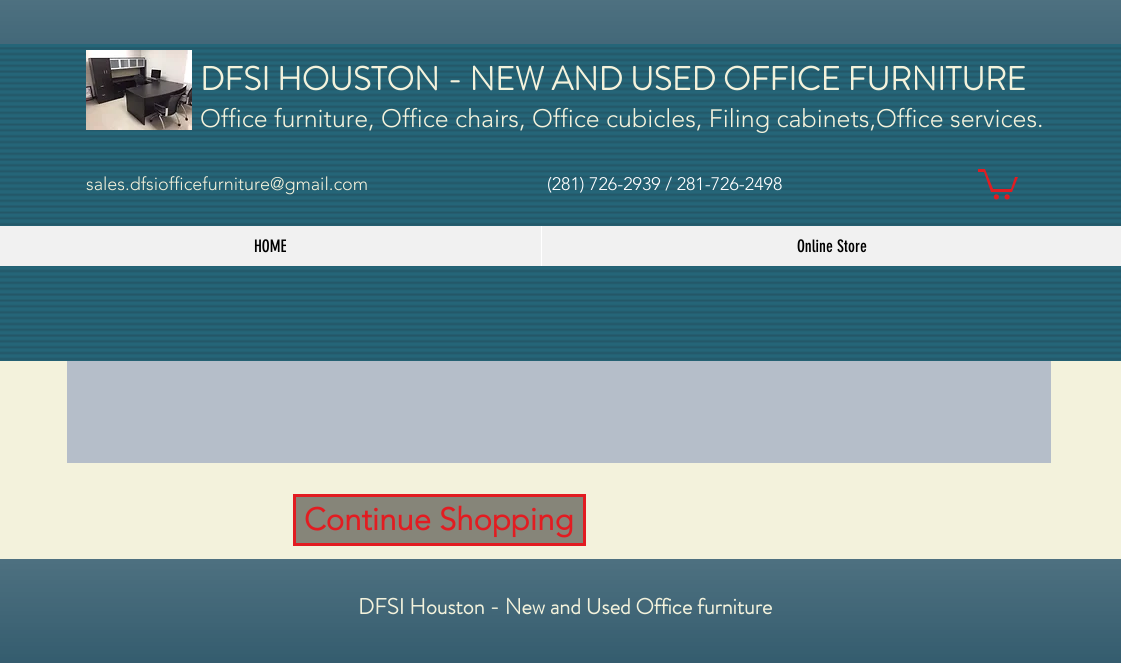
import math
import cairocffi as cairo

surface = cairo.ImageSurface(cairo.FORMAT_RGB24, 1121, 663)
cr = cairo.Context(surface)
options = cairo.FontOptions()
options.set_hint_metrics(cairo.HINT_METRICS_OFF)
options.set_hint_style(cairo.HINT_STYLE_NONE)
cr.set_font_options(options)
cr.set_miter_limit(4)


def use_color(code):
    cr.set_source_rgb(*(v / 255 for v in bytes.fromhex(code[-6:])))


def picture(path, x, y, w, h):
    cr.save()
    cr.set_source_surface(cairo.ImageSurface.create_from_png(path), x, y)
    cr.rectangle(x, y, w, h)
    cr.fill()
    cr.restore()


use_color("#f3f2dc")
cr.paint()
use_color("#103f54")
cr.rectangle(0, 0, 1121, 44)
cr.fill()
picture("img1.png", 0, 0, 1121, 44)
use_color("#256578")
cr.rectangle(0, 44, 1121, 317)
cr.fill()
picture("img2.png", 0, 47, 1121, 314)
picture("img3.png", 86, 50, 106, 80)
cr.select_font_face("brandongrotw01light", cairo.FONT_SLANT_NORMAL, cairo.FONT_WEIGHT_BOLD)
cr.set_font_size(33)
use_color("#f3f2dc")
cr.move_to(200, 90)
cr.show_text("DFSI HOUSTON - NEW AND USED OFFICE FURNITURE")
cr.select_font_face("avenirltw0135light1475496 Light")
cr.set_font_size(25)
cr.move_to(200, 127)
cr.show_text("Office furniture, Office chairs, Office cubicles, Filing cabinets,Office services.")
cr.set_font_size(18)
cr.move_to(86, 190)
cr.show_text("sales.dfsiofficefurniture@gmail.com")
use_color("#ffffff")
cr.move_to(547, 190)
cr.show_text("(281) 726-2939 / 281-726-2498")
use_color("#e21c21")
cr.new_path()
cr.move_to(1018, 177)
cr.line_to(1012, 192)
cr.line_to(991, 192)
cr.line_to(984, 172)
cr.line_to(978, 172)
cr.line_to(978, 169)
cr.line_to(985, 169)
cr.line_to(993, 189)
cr.line_to(1011, 189)
cr.line_to(1015, 177)
cr.fill()
cr.arc(1007.1, 196.9, 2.6, 0, 2 * math.pi)
cr.fill()
cr.arc(996.4, 196.9, 2.6, 0, 2 * math.pi)
cr.fill()
use_color("#f1f1f1")
cr.rectangle(0, 226, 1121, 40)
cr.fill()
cr.select_font_face("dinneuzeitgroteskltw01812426")
cr.set_font_size(17)
use_color("#000000")
cr.move_to(254, 252)
cr.show_text("HOME")
use_color("#ffffff")
cr.rectangle(541, 226, 1, 40)
cr.fill()
use_color("#000000")
cr.move_to(797, 252)
cr.show_text("Online Store")
use_color("#b5bec9")
cr.rectangle(67, 361, 984, 102)
cr.fill()
use_color("#868579")
cr.rectangle(294.5, 495.5, 290, 49)
cr.fill_preserve()
use_color("#e21c21")
cr.set_line_width(3)
cr.stroke()
cr.select_font_face("avenirltw0135light1475496", cairo.FONT_SLANT_NORMAL, cairo.FONT_WEIGHT_BOLD)
cr.set_font_size(31)
cr.move_to(304, 530)
cr.show_text("Continue Shopping")
use_color("#103f54")
cr.rectangle(0, 559, 1121, 104)
cr.fill()
picture("img4.png", 0, 559, 1121, 104)
cr.select_font_face("brandongrotw01light", cairo.FONT_SLANT_NORMAL, cairo.FONT_WEIGHT_BOLD)
cr.set_font_size(22)
use_color("#f3f2dc")
cr.move_to(358, 614)
cr.show_text("DFSI Houston - New and Used Office furniture")
surface.write_to_png("result.png")
